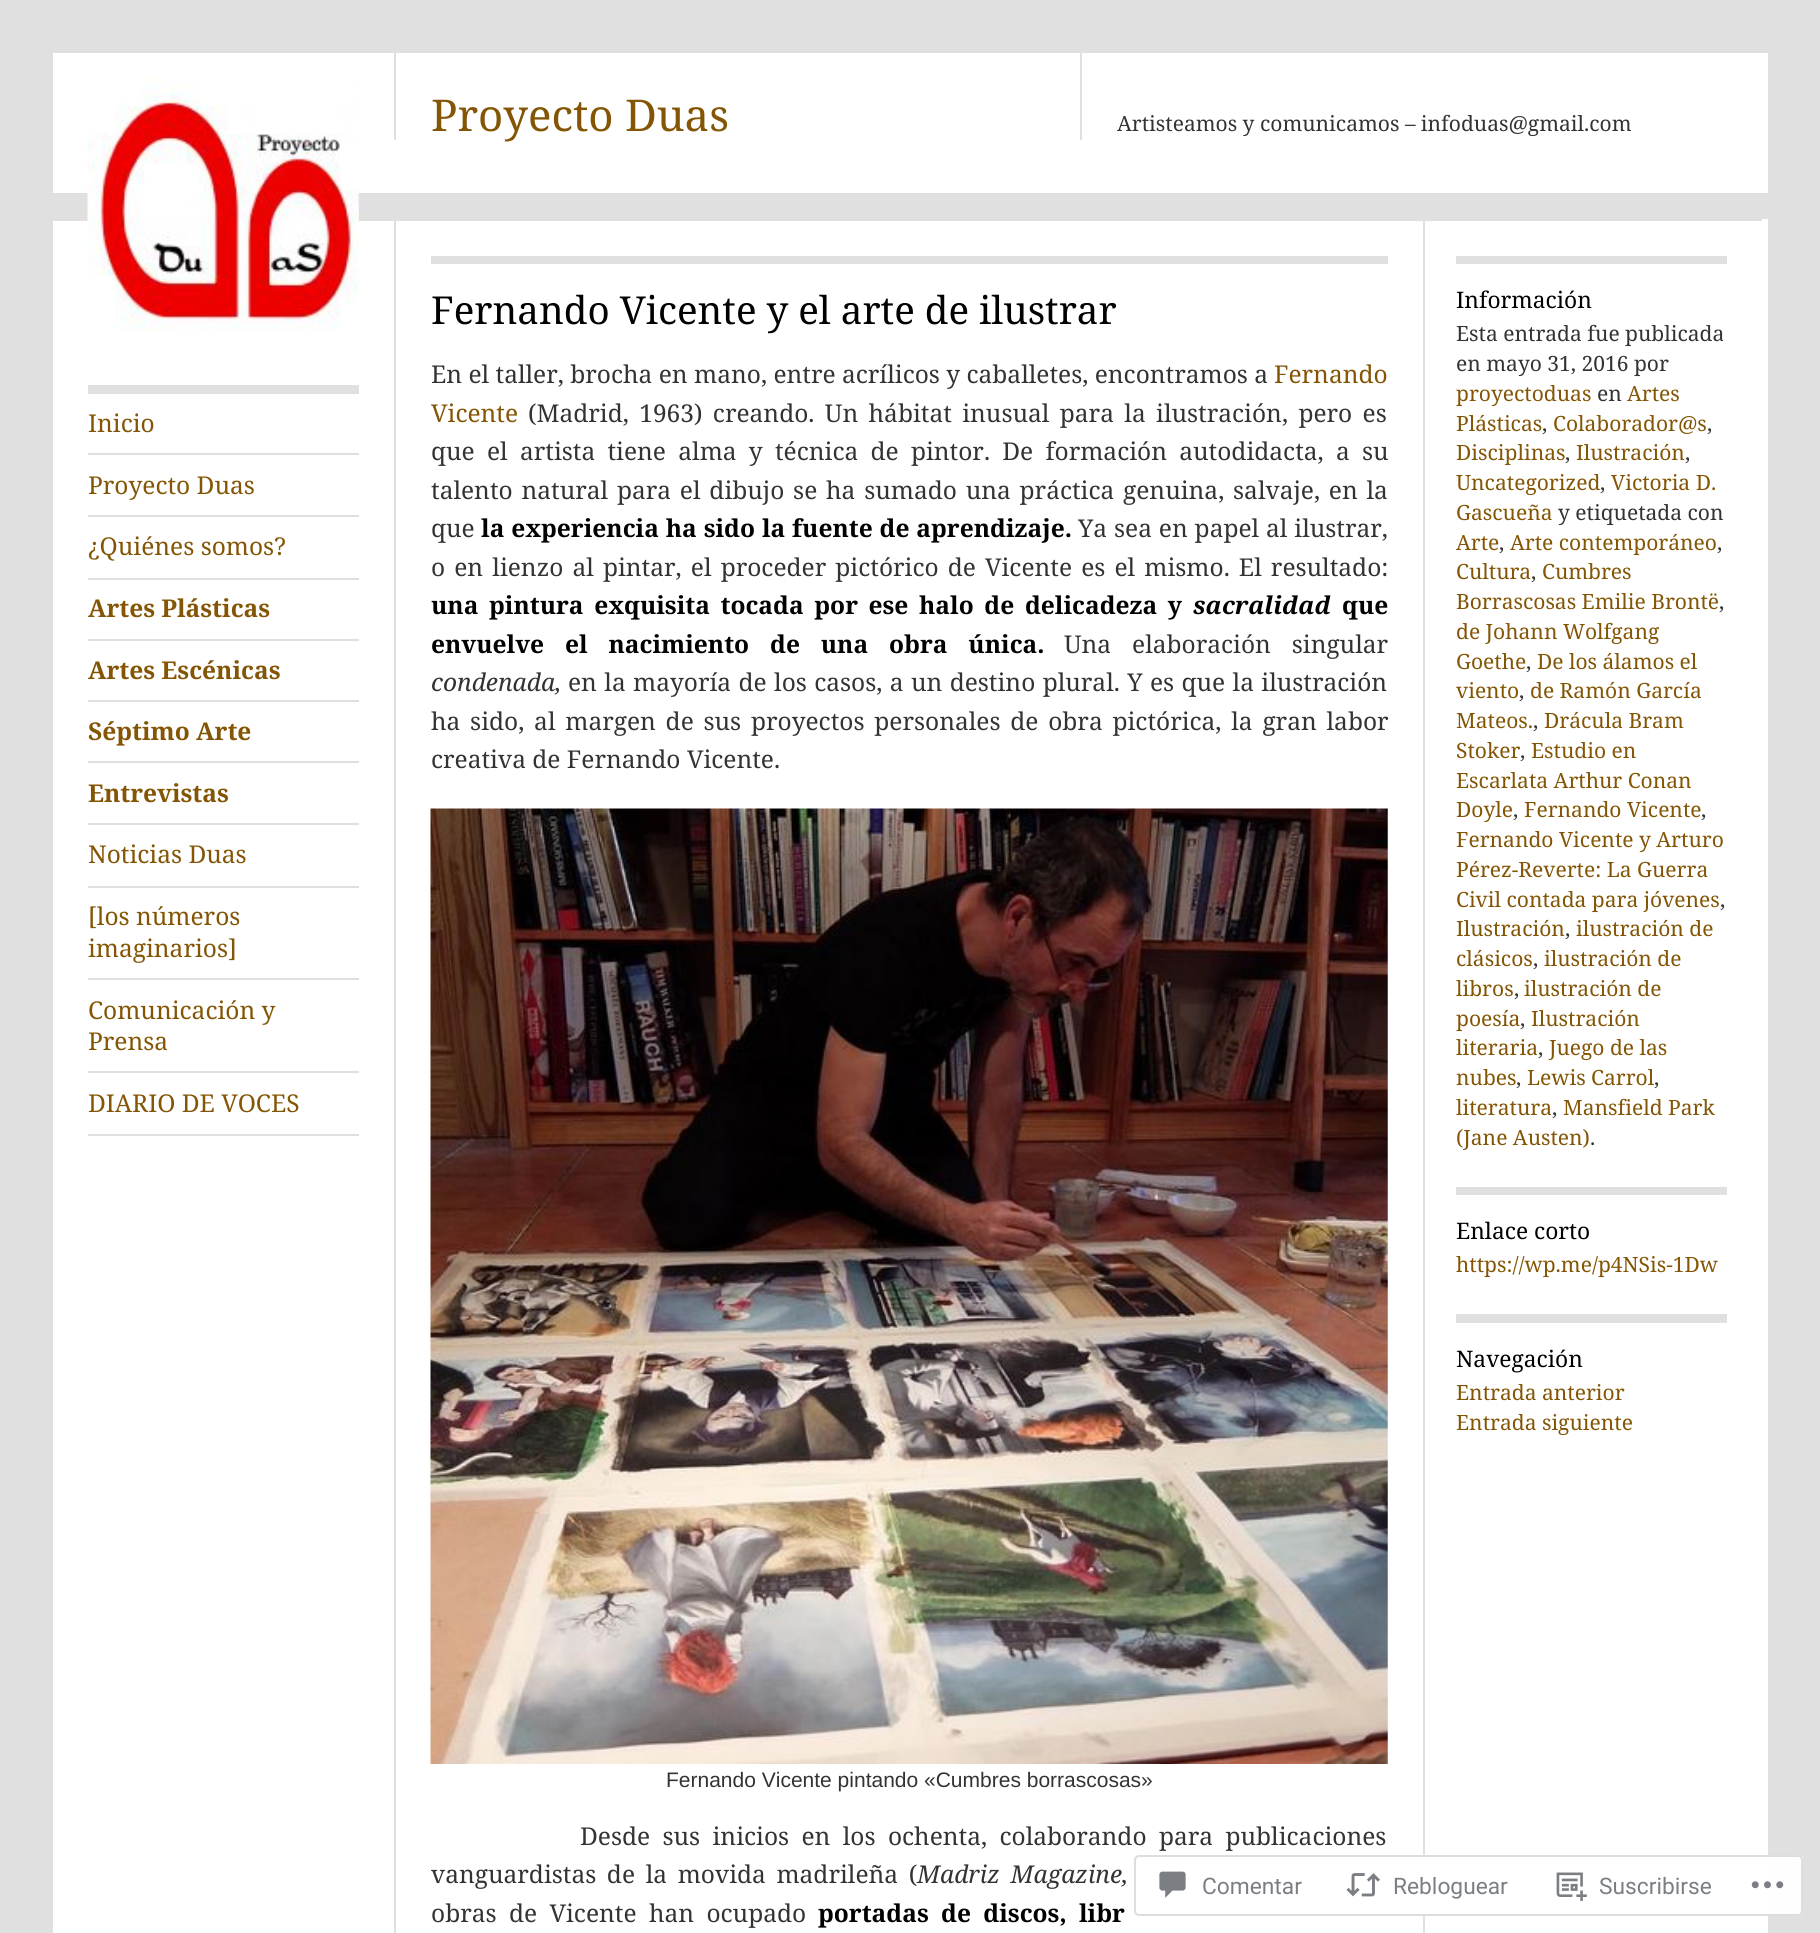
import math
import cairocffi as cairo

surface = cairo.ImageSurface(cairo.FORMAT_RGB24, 1820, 1933)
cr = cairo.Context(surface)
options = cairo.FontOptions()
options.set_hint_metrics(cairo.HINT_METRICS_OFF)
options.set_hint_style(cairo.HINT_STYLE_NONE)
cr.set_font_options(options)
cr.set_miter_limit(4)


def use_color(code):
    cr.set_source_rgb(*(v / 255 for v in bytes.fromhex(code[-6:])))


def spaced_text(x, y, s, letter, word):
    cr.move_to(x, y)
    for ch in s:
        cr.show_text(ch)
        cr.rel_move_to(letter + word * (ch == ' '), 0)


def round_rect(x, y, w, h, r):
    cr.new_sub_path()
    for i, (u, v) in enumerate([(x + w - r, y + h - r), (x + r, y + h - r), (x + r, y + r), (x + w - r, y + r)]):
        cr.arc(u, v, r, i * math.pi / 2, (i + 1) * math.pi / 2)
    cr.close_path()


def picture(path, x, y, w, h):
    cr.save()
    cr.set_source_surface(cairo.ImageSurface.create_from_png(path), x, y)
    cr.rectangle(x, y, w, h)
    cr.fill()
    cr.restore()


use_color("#e0e0e0")
cr.paint()
use_color("#ffffff")
cr.rectangle(53, 53, 1715, 140)
cr.fill()
cr.rectangle(53, 219, 1715, 1714)
cr.fill()
use_color("#e0e0e0")
cr.rectangle(53, 219, 1372, 2)
cr.fill()
picture("img1.png", 87, 79, 272, 253)
cr.rectangle(394, 53, 2, 87)
cr.fill()
cr.select_font_face("Noto Serif")
cr.set_font_size(43.75)
use_color("#835504")
cr.move_to(431, 131)
cr.show_text("Proyecto Duas")
use_color("#e0e0e0")
cr.rectangle(1080, 53, 2, 87)
cr.fill()
cr.set_font_size(21)
use_color("#333333")
cr.move_to(1117, 131)
cr.show_text("Artisteamos y comunicamos – infoduas@gmail.com")
use_color("#e0e0e0")
cr.rectangle(88, 385, 271, 9)
cr.fill()
cr.rectangle(88, 453, 271, 2)
cr.fill()
cr.set_font_size(24.5)
use_color("#835504")
cr.move_to(88, 432)
cr.show_text("Inicio")
use_color("#e0e0e0")
cr.rectangle(88, 515, 271, 2)
cr.fill()
use_color("#835504")
cr.move_to(88, 494)
cr.show_text("Proyecto Duas")
use_color("#e0e0e0")
cr.rectangle(88, 578, 271, 2)
cr.fill()
use_color("#835504")
cr.move_to(88, 555)
cr.show_text("¿Quiénes somos?")
use_color("#e0e0e0")
cr.rectangle(88, 639, 271, 2)
cr.fill()
cr.select_font_face("Noto Serif", cairo.FONT_SLANT_NORMAL, cairo.FONT_WEIGHT_BOLD)
use_color("#835504")
cr.move_to(88, 617)
cr.show_text("Artes Plásticas")
use_color("#e0e0e0")
cr.rectangle(88, 700, 271, 2)
cr.fill()
use_color("#835504")
cr.move_to(88, 679)
cr.show_text("Artes Escénicas")
use_color("#e0e0e0")
cr.rectangle(88, 761, 271, 2)
cr.fill()
use_color("#835504")
cr.move_to(88, 740)
cr.show_text("Séptimo Arte")
use_color("#e0e0e0")
cr.rectangle(88, 823, 271, 2)
cr.fill()
use_color("#835504")
cr.move_to(88, 802)
cr.show_text("Entrevistas")
use_color("#e0e0e0")
cr.rectangle(88, 886, 271, 2)
cr.fill()
cr.select_font_face("Noto Serif")
use_color("#835504")
cr.move_to(88, 863)
cr.show_text("Noticias Duas")
use_color("#e0e0e0")
cr.rectangle(88, 978, 271, 2)
cr.fill()
use_color("#835504")
cr.move_to(88, 925)
cr.show_text("[los números")
cr.move_to(88, 957)
cr.show_text("imaginarios]")
use_color("#e0e0e0")
cr.rectangle(88, 1071, 271, 2)
cr.fill()
use_color("#835504")
cr.move_to(88, 1019)
cr.show_text("Comunicación y")
cr.move_to(88, 1050)
cr.show_text("Prensa")
use_color("#e0e0e0")
cr.rectangle(88, 1134, 271, 2)
cr.fill()
use_color("#835504")
cr.move_to(88, 1112)
cr.show_text("DIARIO DE VOCES")
use_color("#e0e0e0")
cr.rectangle(1423, 219, 2, 1714)
cr.fill()
cr.rectangle(394, 219, 2, 1714)
cr.fill()
cr.rectangle(431, 256, 957, 8)
cr.fill()
cr.set_font_size(38.5)
use_color("#000000")
cr.move_to(431, 324)
cr.show_text("Fernando Vicente y el arte de ilustrar")
cr.set_font_size(24.5)
use_color("#333333")
cr.move_to(431, 383)
cr.show_text("En el taller, brocha en mano, entre acrílicos y caballetes, encontramos a")
use_color("#835504")
cr.move_to(1274, 383)
cr.show_text("Fernando")
cr.move_to(431, 422)
cr.show_text("Vicente")
use_color("#333333")
spaced_text(528, 422, "(Madrid, 1963) creando. Un hábitat inusual para la ilustración, pero es", 0, 4)
spaced_text(431, 460, "que el artista tiene alma y técnica de pintor. De formación autodidacta, a su", 0, 5.9)
spaced_text(431, 499, "talento natural para el dibujo se ha sumado una práctica genuina, salvaje, en la", 0, 2.4)
cr.move_to(431, 537)
cr.show_text("que")
cr.select_font_face("Noto Serif", cairo.FONT_SLANT_NORMAL, cairo.FONT_WEIGHT_BOLD)
use_color("#000000")
spaced_text(481, 537, "la experiencia ha sido la fuente de aprendizaje.", 0, 0.5)
cr.select_font_face("Noto Serif")
use_color("#333333")
spaced_text(1078, 537, "Ya sea en papel al ilustrar,", 0, 0.5)
spaced_text(431, 576, "o en lienzo al pintar, el proceder pictórico de Vicente es el mismo. El resultado:", 0, 2.75)
cr.select_font_face("Noto Serif", cairo.FONT_SLANT_NORMAL, cairo.FONT_WEIGHT_BOLD)
use_color("#000000")
spaced_text(431, 614, "una pintura exquisita tocada por ese halo de delicadeza y", 0, 4.25)
cr.select_font_face("Noto Serif", cairo.FONT_SLANT_ITALIC, cairo.FONT_WEIGHT_BOLD)
cr.move_to(1193, 614)
cr.show_text("sacralidad")
cr.select_font_face("Noto Serif", cairo.FONT_SLANT_NORMAL, cairo.FONT_WEIGHT_BOLD)
cr.move_to(1342, 614)
cr.show_text("que")
spaced_text(431, 653, "envuelve el nacimiento de una obra única.", 0, 14.5)
cr.select_font_face("Noto Serif")
use_color("#333333")
spaced_text(1064, 653, "Una elaboración singular", 0, 14.5)
cr.select_font_face("Noto Serif", cairo.FONT_SLANT_ITALIC)
cr.move_to(431, 691)
cr.show_text("condenada,")
cr.select_font_face("Noto Serif")
spaced_text(568, 691, "en la mayoría de los casos, a un destino plural. Y es que la ilustración", 0, 1)
spaced_text(431, 730, "ha sido, al margen de sus proyectos personales de obra pictórica, la gran labor", 0, 3.4)
cr.move_to(431, 768)
cr.show_text("creativa de Fernando Vicente.")
picture("img2.png", 430, 808, 958, 956)
cr.select_font_face("Liberation Sans")
cr.set_font_size(21)
cr.move_to(666, 1787)
cr.show_text("Fernando Vicente pintando «Cumbres borrascosas»")
cr.select_font_face("Noto Serif")
cr.set_font_size(24.5)
spaced_text(580, 1845, "Desde sus inicios en los ochenta, colaborando para publicaciones", 0, 6)
spaced_text(431, 1883, "vanguardistas de la movida madrileña (", 0, 4.25)
cr.select_font_face("Noto Serif", cairo.FONT_SLANT_ITALIC)
spaced_text(917, 1883, "Madriz Magazine,", 0, 4.25)
cr.select_font_face("Noto Serif")
spaced_text(431, 1922, "obras de Vicente han ocupado", 0, 6)
cr.select_font_face("Noto Serif", cairo.FONT_SLANT_NORMAL, cairo.FONT_WEIGHT_BOLD)
use_color("#000000")
spaced_text(818, 1922, "portadas de discos, libr", 0, 6)
use_color("#e0e0e0")
cr.rectangle(1421, 219, 341, 2)
cr.fill()
cr.rectangle(1456, 256, 271, 8)
cr.fill()
cr.select_font_face("Noto Serif")
cr.set_font_size(22.75)
use_color("#000000")
cr.move_to(1456, 308)
cr.show_text("Información")
cr.set_font_size(21)
use_color("#333333")
cr.move_to(1456, 341)
cr.show_text("Esta entrada fue publicada")
cr.move_to(1456, 371)
cr.show_text("en mayo 31, 2016 por")
use_color("#835504")
cr.move_to(1456, 401)
cr.show_text("proyectoduas")
use_color("#333333")
cr.move_to(1597, 401)
cr.show_text("en")
use_color("#835504")
cr.move_to(1627, 401)
cr.show_text("Artes")
cr.move_to(1456, 431)
cr.show_text("Plásticas")
use_color("#333333")
cr.move_to(1542, 431)
cr.show_text(",")
use_color("#835504")
cr.move_to(1553, 431)
cr.show_text("Colaborador@s")
use_color("#333333")
cr.move_to(1707, 431)
cr.show_text(",")
use_color("#835504")
cr.move_to(1456, 460)
cr.show_text("Disciplinas")
use_color("#333333")
cr.move_to(1565, 460)
cr.show_text(",")
use_color("#835504")
cr.move_to(1576, 460)
cr.show_text("Ilustración")
use_color("#333333")
cr.move_to(1685, 460)
cr.show_text(",")
use_color("#835504")
cr.move_to(1456, 490)
cr.show_text("Uncategorized")
use_color("#333333")
cr.move_to(1600, 490)
cr.show_text(",")
use_color("#835504")
cr.move_to(1611, 490)
cr.show_text("Victoria D.")
cr.move_to(1456, 520)
cr.show_text("Gascueña")
use_color("#333333")
cr.move_to(1558, 520)
cr.show_text("y etiquetada con")
use_color("#835504")
cr.move_to(1456, 550)
cr.show_text("Arte")
use_color("#333333")
cr.move_to(1499, 550)
cr.show_text(",")
use_color("#835504")
cr.move_to(1510, 550)
cr.show_text("Arte contemporáneo")
use_color("#333333")
cr.move_to(1717, 550)
cr.show_text(",")
use_color("#835504")
cr.move_to(1456, 579)
cr.show_text("Cultura")
use_color("#333333")
cr.move_to(1531, 579)
cr.show_text(",")
use_color("#835504")
cr.move_to(1542, 579)
cr.show_text("Cumbres")
cr.move_to(1456, 609)
cr.show_text("Borrascosas Emilie Brontë")
use_color("#333333")
cr.move_to(1719, 609)
cr.show_text(",")
use_color("#835504")
cr.move_to(1456, 639)
cr.show_text("de Johann Wolfgang")
cr.move_to(1456, 669)
cr.show_text("Goethe")
use_color("#333333")
cr.move_to(1526, 669)
cr.show_text(",")
use_color("#835504")
cr.move_to(1537, 669)
cr.show_text("De los álamos el")
cr.move_to(1456, 698)
cr.show_text("viento")
use_color("#333333")
cr.move_to(1519, 698)
cr.show_text(",")
use_color("#835504")
cr.move_to(1530, 698)
cr.show_text("de Ramón García")
cr.move_to(1456, 728)
cr.show_text("Mateos.")
use_color("#333333")
cr.move_to(1533, 728)
cr.show_text(",")
use_color("#835504")
cr.move_to(1544, 728)
cr.show_text("Drácula Bram")
cr.move_to(1456, 758)
cr.show_text("Stoker")
use_color("#333333")
cr.move_to(1520, 758)
cr.show_text(",")
use_color("#835504")
cr.move_to(1531, 758)
cr.show_text("Estudio en")
cr.move_to(1456, 788)
cr.show_text("Escarlata Arthur Conan")
cr.move_to(1456, 817)
cr.show_text("Doyle")
use_color("#333333")
cr.move_to(1513, 817)
cr.show_text(",")
use_color("#835504")
cr.move_to(1524, 817)
cr.show_text("Fernando Vicente")
use_color("#333333")
cr.move_to(1701, 817)
cr.show_text(",")
use_color("#835504")
cr.move_to(1456, 847)
cr.show_text("Fernando Vicente y Arturo")
cr.move_to(1456, 877)
cr.show_text("Pérez-Reverte: La Guerra")
cr.move_to(1456, 907)
cr.show_text("Civil contada para jóvenes")
use_color("#333333")
cr.move_to(1720, 907)
cr.show_text(",")
use_color("#835504")
cr.move_to(1456, 936)
cr.show_text("Ilustración")
use_color("#333333")
cr.move_to(1565, 936)
cr.show_text(",")
use_color("#835504")
cr.move_to(1576, 936)
cr.show_text("ilustración de")
cr.move_to(1456, 966)
cr.show_text("clásicos")
use_color("#333333")
cr.move_to(1533, 966)
cr.show_text(",")
use_color("#835504")
cr.move_to(1544, 966)
cr.show_text("ilustración de")
cr.move_to(1456, 996)
cr.show_text("libros")
use_color("#333333")
cr.move_to(1514, 996)
cr.show_text(",")
use_color("#835504")
cr.move_to(1524, 996)
cr.show_text("ilustración de")
cr.move_to(1456, 1026)
cr.show_text("poesía")
use_color("#333333")
cr.move_to(1520, 1026)
cr.show_text(",")
use_color("#835504")
cr.move_to(1531, 1026)
cr.show_text("Ilustración")
cr.move_to(1456, 1055)
cr.show_text("literaria")
use_color("#333333")
cr.move_to(1538, 1055)
cr.show_text(",")
use_color("#835504")
cr.move_to(1549, 1055)
cr.show_text("Juego de las")
cr.move_to(1456, 1085)
cr.show_text("nubes")
use_color("#333333")
cr.move_to(1516, 1085)
cr.show_text(",")
use_color("#835504")
cr.move_to(1527, 1085)
cr.show_text("Lewis Carrol")
use_color("#333333")
cr.move_to(1654, 1085)
cr.show_text(",")
use_color("#835504")
cr.move_to(1456, 1115)
cr.show_text("literatura")
use_color("#333333")
cr.move_to(1552, 1115)
cr.show_text(",")
use_color("#835504")
cr.move_to(1563, 1115)
cr.show_text("Mansfield Park")
cr.move_to(1456, 1145)
cr.show_text("(Jane Austen)")
use_color("#333333")
cr.move_to(1590, 1145)
cr.show_text(".")
use_color("#e0e0e0")
cr.rectangle(1456, 1187, 271, 8)
cr.fill()
cr.set_font_size(22.75)
use_color("#000000")
cr.move_to(1456, 1239)
cr.show_text("Enlace corto")
cr.set_font_size(21)
use_color("#835504")
cr.move_to(1456, 1272)
cr.show_text("https://wp.me/p4NSis-1Dw")
use_color("#e0e0e0")
cr.rectangle(1456, 1314, 271, 9)
cr.fill()
cr.set_font_size(22.75)
use_color("#000000")
cr.move_to(1456, 1367)
cr.show_text("Navegación")
cr.set_font_size(21)
use_color("#835504")
cr.move_to(1456, 1400)
cr.show_text("Entrada anterior")
cr.move_to(1456, 1430)
cr.show_text("Entrada siguiente")
cr.set_source_rgba(1, 1, 1, 0.98)
round_rect(1134, 1855, 669, 61, 5)
cr.fill()
round_rect(1135, 1856, 667, 59, 4)
cr.set_source_rgba(0.863, 0.863, 0.871, 0.98)
cr.stroke()
picture("img3.png", 1159, 1871, 27, 27)
cr.select_font_face("Roboto")
cr.set_font_size(22.75)
use_color("#7b7f84")
cr.move_to(1202, 1894)
cr.show_text("Comentar")
picture("img4.png", 1346, 1873, 34, 24)
cr.move_to(1393, 1894)
cr.show_text("Rebloguear")
picture("img5.png", 1556, 1872, 31, 29)
cr.move_to(1599, 1894)
cr.show_text("Suscribirse")
picture("img6.png", 1751, 1881, 33, 8)
surface.write_to_png("result.png")
